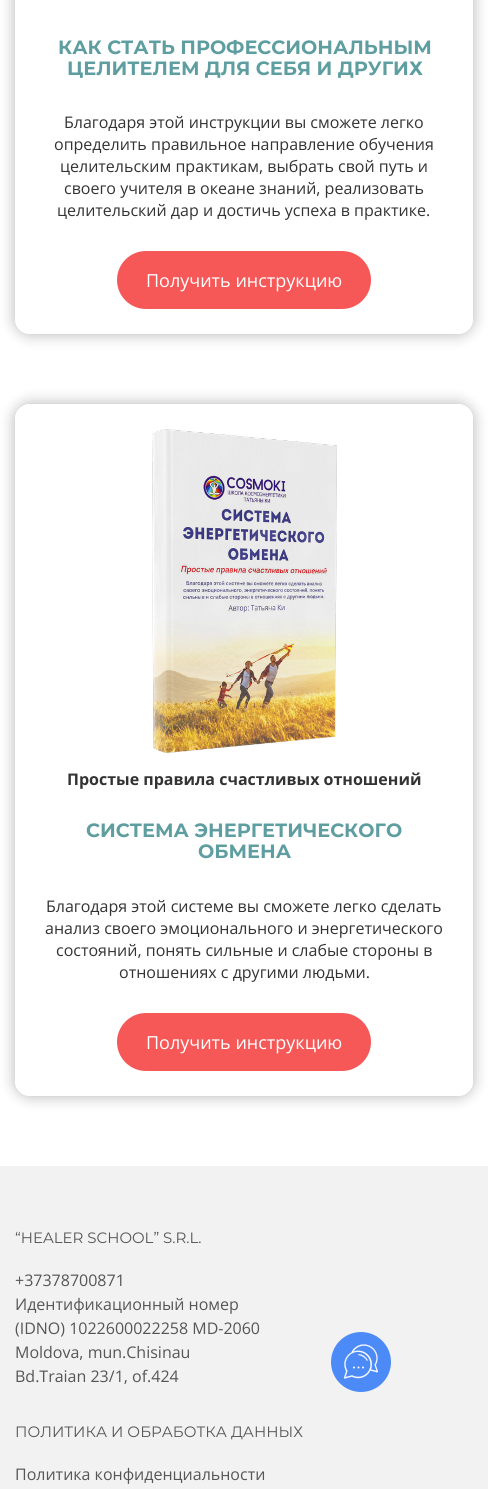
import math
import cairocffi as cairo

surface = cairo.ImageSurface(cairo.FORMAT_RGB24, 488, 1489)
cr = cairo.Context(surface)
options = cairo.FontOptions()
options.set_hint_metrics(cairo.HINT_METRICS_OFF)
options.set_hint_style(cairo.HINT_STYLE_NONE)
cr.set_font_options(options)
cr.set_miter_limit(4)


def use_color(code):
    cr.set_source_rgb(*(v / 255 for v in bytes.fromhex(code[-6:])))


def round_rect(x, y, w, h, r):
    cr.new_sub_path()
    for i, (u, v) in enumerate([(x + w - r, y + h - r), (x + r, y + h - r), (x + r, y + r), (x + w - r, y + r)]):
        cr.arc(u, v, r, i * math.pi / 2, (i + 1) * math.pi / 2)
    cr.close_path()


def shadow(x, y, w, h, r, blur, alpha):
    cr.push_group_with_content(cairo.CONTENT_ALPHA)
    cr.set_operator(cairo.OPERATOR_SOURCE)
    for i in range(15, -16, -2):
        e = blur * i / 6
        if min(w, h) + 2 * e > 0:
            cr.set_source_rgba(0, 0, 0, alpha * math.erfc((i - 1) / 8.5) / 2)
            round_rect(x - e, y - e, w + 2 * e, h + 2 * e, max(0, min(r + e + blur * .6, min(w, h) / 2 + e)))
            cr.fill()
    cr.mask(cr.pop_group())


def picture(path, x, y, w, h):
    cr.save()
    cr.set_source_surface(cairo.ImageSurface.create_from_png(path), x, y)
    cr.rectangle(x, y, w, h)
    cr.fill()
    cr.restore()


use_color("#ffffff")
cr.paint()
cr.save()
cr.set_fill_rule(cairo.FILL_RULE_EVEN_ODD)
cr.new_path()
cr.move_to(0, 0)
cr.line_to(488, 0)
cr.line_to(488, 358)
cr.line_to(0, 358)
cr.close_path()
cr.move_to(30, -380)
cr.line_to(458, -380)
cr.curve_to(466.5, -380, 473, -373.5, 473, -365)
cr.line_to(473, 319)
cr.curve_to(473, 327.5, 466.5, 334, 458, 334)
cr.line_to(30, 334)
cr.curve_to(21.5, 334, 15, 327.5, 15, 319)
cr.line_to(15, -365)
cr.curve_to(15, -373.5, 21.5, -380, 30, -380)
cr.close_path()
cr.clip()
use_color("#000000")
shadow(15, -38, 458, 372, 15, 7.5, 0.3)
cr.restore()
cr.select_font_face("Montserrat", cairo.FONT_SLANT_NORMAL, cairo.FONT_WEIGHT_BOLD)
cr.set_font_size(19.25)
use_color("#5f9ea0")
cr.move_to(58, 54)
cr.show_text("КАК СТАТЬ ПРОФЕССИОНАЛЬНЫМ")
cr.move_to(67, 75)
cr.show_text("ЦЕЛИТЕЛЕМ ДЛЯ СЕБЯ И ДРУГИХ")
cr.select_font_face("Open Sans")
cr.set_font_size(16)
use_color("#333333")
cr.move_to(64, 128)
cr.show_text("Благодаря этой инструкции вы сможете легко")
cr.move_to(54, 150)
cr.show_text("определить правильное направление обучения")
cr.move_to(60, 172)
cr.show_text("целительским практикам, выбрать свой путь и")
cr.move_to(64, 194)
cr.show_text("своего учителя в океане знаний, реализовать")
cr.move_to(57, 216)
cr.show_text("целительский дар и достичь успеха в практике.")
use_color("#f65858")
round_rect(117, 251, 254, 58, 29)
cr.fill()
cr.set_font_size(18)
use_color("#ffffff")
cr.move_to(146, 287)
cr.show_text("Получить инструкцию")
cr.save()
cr.set_fill_rule(cairo.FILL_RULE_EVEN_ODD)
cr.new_path()
cr.move_to(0, 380)
cr.line_to(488, 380)
cr.line_to(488, 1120)
cr.line_to(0, 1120)
cr.close_path()
cr.move_to(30, 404)
cr.line_to(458, 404)
cr.curve_to(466.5, 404, 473, 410.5, 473, 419)
cr.line_to(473, 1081)
cr.curve_to(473, 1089.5, 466.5, 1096, 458, 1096)
cr.line_to(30, 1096)
cr.curve_to(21.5, 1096, 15, 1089.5, 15, 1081)
cr.line_to(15, 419)
cr.curve_to(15, 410.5, 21.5, 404, 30, 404)
cr.close_path()
cr.clip()
use_color("#000000")
shadow(15, 404, 458, 692, 15, 7.5, 0.3)
cr.restore()
picture("img1.png", 152, 429, 185, 324)
cr.select_font_face("Open Sans", cairo.FONT_SLANT_NORMAL, cairo.FONT_WEIGHT_BOLD)
cr.set_font_size(16)
use_color("#333333")
cr.move_to(67, 785)
cr.show_text("Простые правила счастливых отношений")
cr.select_font_face("Montserrat", cairo.FONT_SLANT_NORMAL, cairo.FONT_WEIGHT_BOLD)
cr.set_font_size(19.25)
use_color("#5f9ea0")
cr.move_to(86, 837)
cr.show_text("СИСТЕМА ЭНЕРГЕТИЧЕСКОГО")
cr.move_to(198, 858)
cr.show_text("ОБМЕНА")
cr.select_font_face("Open Sans")
cr.set_font_size(16)
use_color("#333333")
cr.move_to(46, 912)
cr.show_text("Благодаря этой системе вы сможете легко сделать")
cr.move_to(45, 934)
cr.show_text("анализ своего эмоционального и энергетического")
cr.move_to(56, 956)
cr.show_text("состояний, понять сильные и слабые стороны в")
cr.move_to(119, 978)
cr.show_text("отношениях с другими людьми.")
use_color("#f65858")
round_rect(117, 1013, 254, 58, 29)
cr.fill()
cr.set_font_size(18)
use_color("#ffffff")
cr.move_to(146, 1049)
cr.show_text("Получить инструкцию")
use_color("#f2f2f2")
cr.rectangle(0, 1166, 488, 323)
cr.fill()
cr.select_font_face("Montserrat")
cr.set_font_size(15)
use_color("#565656")
cr.move_to(15, 1243)
cr.show_text("“HEALER SCHOOL” S.R.L.")
cr.select_font_face("Open Sans")
cr.set_font_size(16)
cr.move_to(15, 1286)
cr.show_text("+37378700871")
cr.move_to(15, 1310)
cr.show_text("Идентификационный номер")
cr.move_to(15, 1334)
cr.show_text("(IDNO) 1022600022258 MD-2060")
cr.move_to(15, 1358)
cr.show_text("Moldova, mun.Chisinau")
cr.move_to(15, 1382)
cr.show_text("Bd.Traian 23/1, of.424")
cr.select_font_face("Montserrat")
cr.set_font_size(15)
cr.move_to(15, 1437)
cr.show_text("ПОЛИТИКА И ОБРАБОТКА ДАННЫХ")
cr.select_font_face("Open Sans")
cr.set_font_size(16)
cr.move_to(15, 1480)
cr.show_text("Политика конфиденциальности")
use_color("#4c8bf7")
cr.new_path()
cr.arc(361, 1362, 30, 0, 2 * math.pi)
cr.fill()
picture("img2.png", 343, 1344, 35, 35)
surface.write_to_png("result.png")
